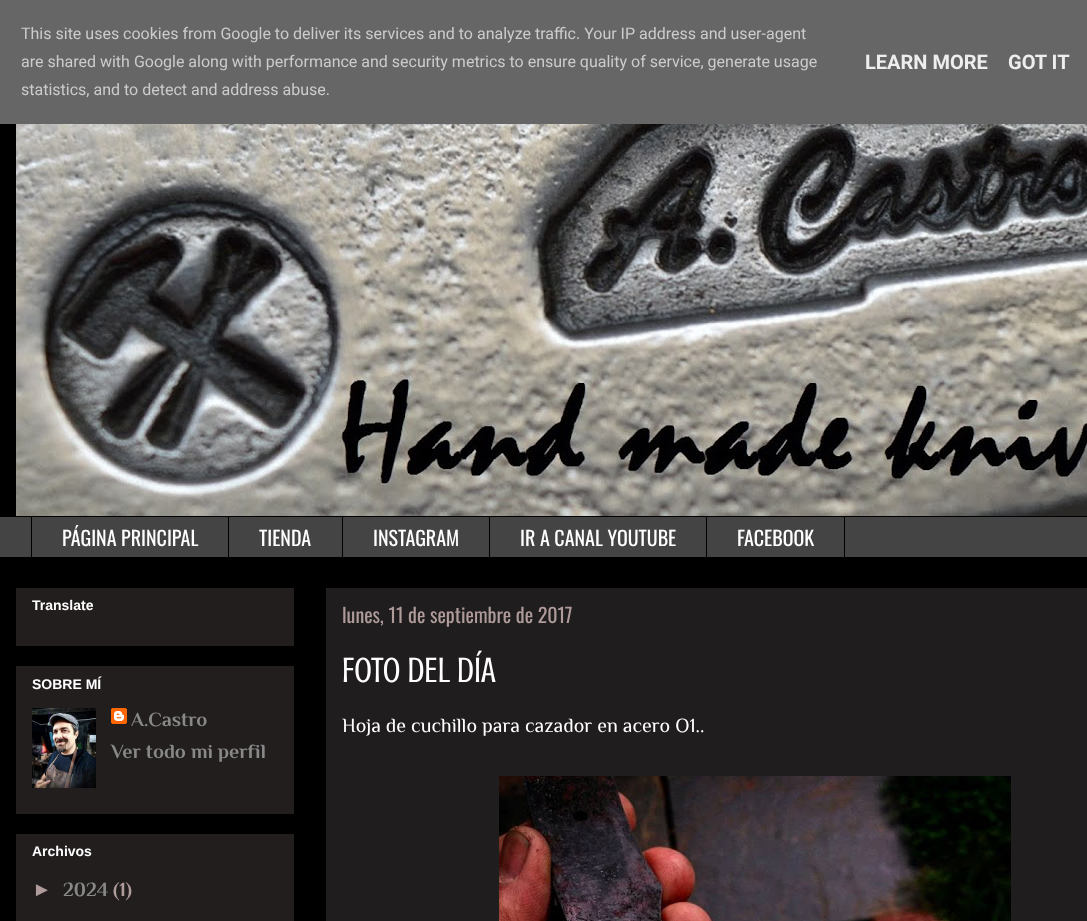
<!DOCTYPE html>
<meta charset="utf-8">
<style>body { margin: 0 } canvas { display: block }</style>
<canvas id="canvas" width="1087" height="921"></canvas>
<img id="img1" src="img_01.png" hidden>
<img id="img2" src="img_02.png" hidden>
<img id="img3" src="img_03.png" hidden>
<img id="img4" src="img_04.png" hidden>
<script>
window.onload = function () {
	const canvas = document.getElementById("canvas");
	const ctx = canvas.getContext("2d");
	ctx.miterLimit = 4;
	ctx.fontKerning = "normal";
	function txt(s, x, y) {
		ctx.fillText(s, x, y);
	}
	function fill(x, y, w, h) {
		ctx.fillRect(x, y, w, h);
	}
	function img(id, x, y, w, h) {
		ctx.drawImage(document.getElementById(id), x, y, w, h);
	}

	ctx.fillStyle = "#000000";
	fill(0, 0, 1087, 921);
	ctx.fillStyle = "#666666";
	fill(0, 0, 1087, 124);
	img("img1", 16, 124, 1071, 392);
	ctx.fillStyle = "#444444";
	fill(0, 517, 1087, 40);
	ctx.fillStyle = "#000000";
	fill(31, 516, 1, 42);
	fill(228, 516, 1, 42);
	fill(342, 516, 1, 42);
	fill(489, 516, 1, 42);
	ctx.strokeStyle = "#000000";
	ctx.strokeRect(706.5, 516.5, 138, 41);
	ctx.fillStyle = "#221E1E";
	fill(16, 588, 278, 58);
	fill(16, 666, 278, 148);
	img("img2", 32, 708, 64, 80);
	img("img3", 111, 708, 16, 16);
	fill(16, 834, 278, 87);
	ctx.fillStyle = "#1F1D1D";
	fill(326, 588, 761, 333);
	img("img4", 499, 776, 512, 145);
	ctx.font = "16px Roboto";
	ctx.fillStyle = "#CCCCCC";
	txt("This site uses cookies from Google to deliver its services and to analyze traffic. Your IP address and user-agent", 21, 39);
	txt("are shared with Google along with performance and security metrics to ensure quality of service, generate usage", 21, 67);
	txt("statistics, and to detect and address abuse.", 21, 95);
	ctx.font = "bold 20px Roboto";
	ctx.fillStyle = "#EEEEEE";
	txt("LEARN MORE", 865, 69);
	txt("GOT IT", 1008, 69);
	ctx.font = "20px Oswald";
	ctx.fillStyle = "#FFFFFF";
	txt("PÁGINA PRINCIPAL", 62, 546);
	txt("TIENDA", 259, 546);
	txt("INSTAGRAM", 373, 546);
	txt("IR A CANAL YOUTUBE", 520, 546);
	txt("FACEBOOK", 737, 546);
	ctx.font = "bold 14px Liberation Sans";
	txt("Translate", 32, 610);
	txt("SOBRE MÍ", 32, 689);
	ctx.font = "bold 20px Philosopher";
	ctx.fillStyle = "#888888";
	txt("A.Castro", 131, 726);
	txt("Ver todo mi perfil", 111, 758);
	ctx.font = "bold 14px Liberation Sans";
	ctx.fillStyle = "#FFFFFF";
	txt("Archivos", 32, 856);
	ctx.font = "bold 20px Liberation Sans";
	ctx.fillStyle = "#B09B9B";
	txt("►", 32, 896);
	ctx.font = "bold 20px Philosopher";
	ctx.fillStyle = "#888888";
	txt("2024", 63, 896);
	ctx.fillStyle = "#B09B9B";
	txt("(1)", 113, 896);
	ctx.font = "20px Oswald";
	txt("lunes, 11 de septiembre de 2017", 342, 623);
	ctx.font = "36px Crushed";
	ctx.fillStyle = "#FFFFFF";
	txt("FOTO DEL DÍA", 342, 682);
	ctx.font = "20px Philosopher";
	txt("Hoja de cuchillo para cazador en acero O1..", 342, 732);
};
</script>
